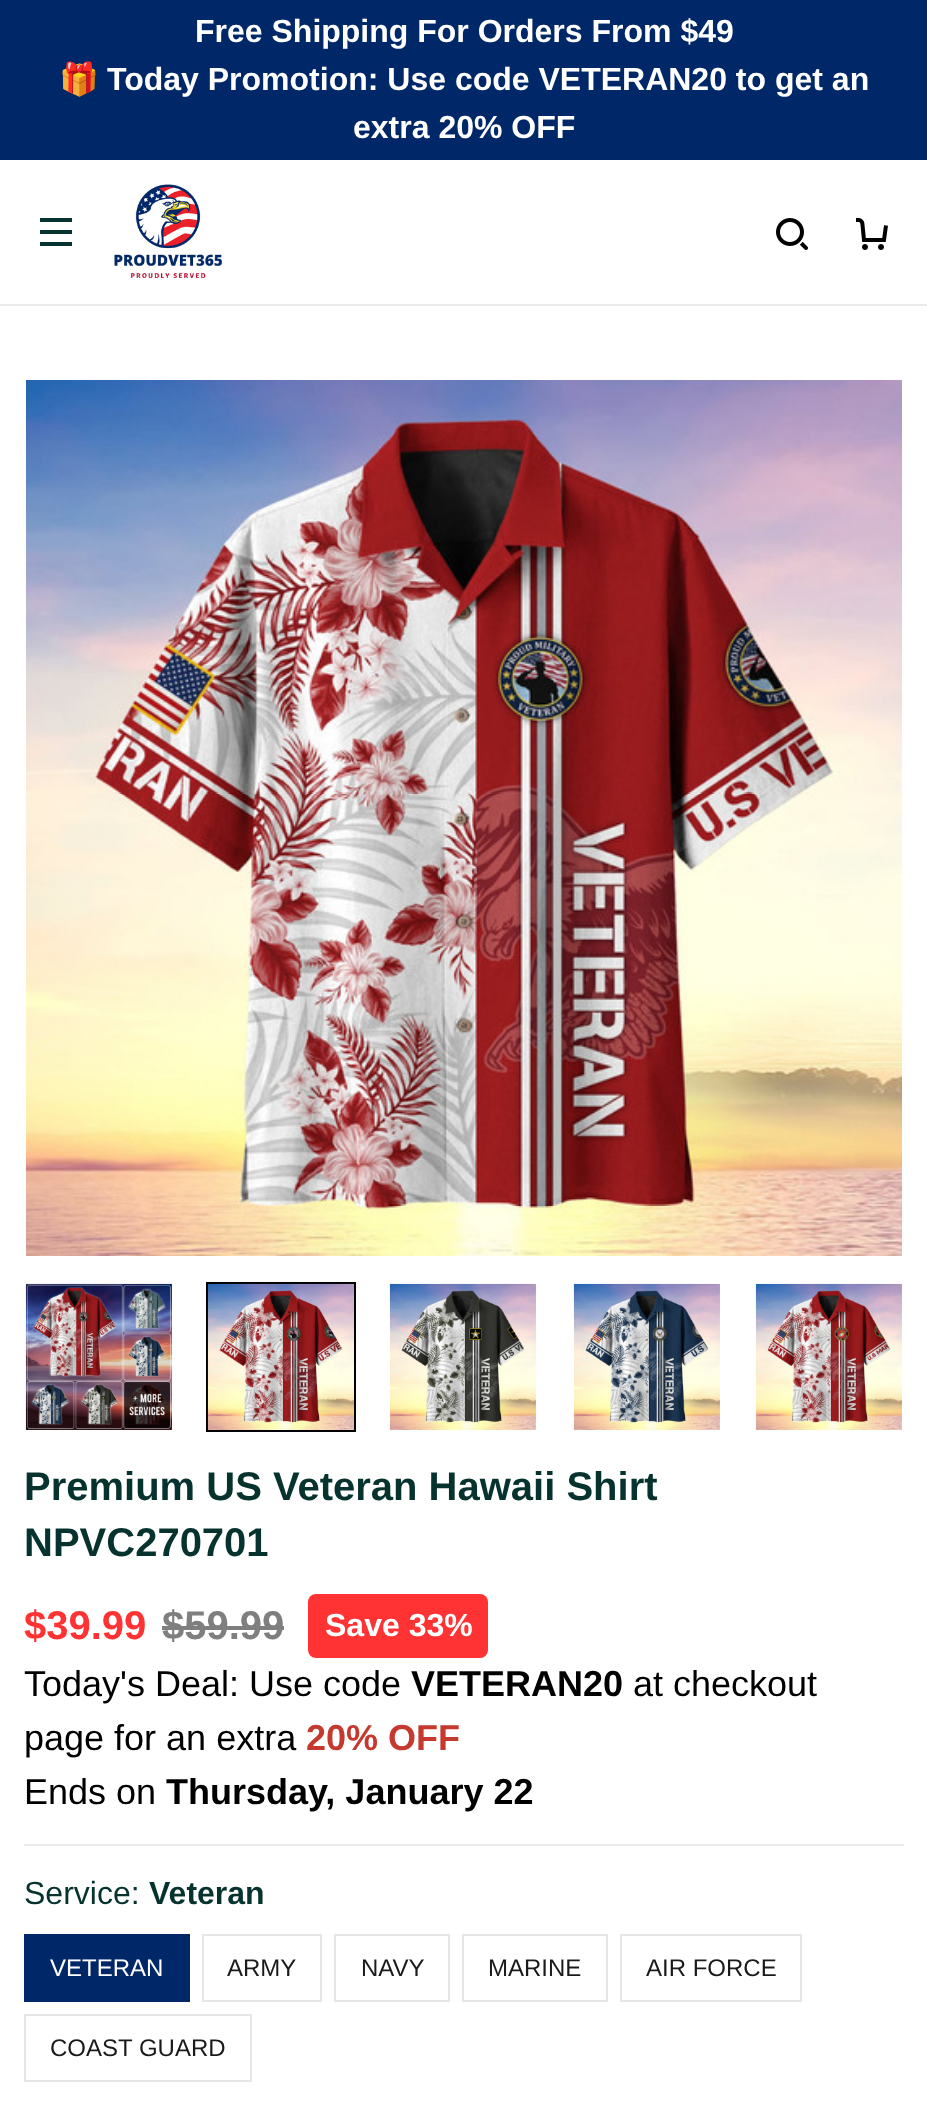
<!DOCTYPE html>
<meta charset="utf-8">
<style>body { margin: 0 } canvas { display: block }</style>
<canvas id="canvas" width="927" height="2123"></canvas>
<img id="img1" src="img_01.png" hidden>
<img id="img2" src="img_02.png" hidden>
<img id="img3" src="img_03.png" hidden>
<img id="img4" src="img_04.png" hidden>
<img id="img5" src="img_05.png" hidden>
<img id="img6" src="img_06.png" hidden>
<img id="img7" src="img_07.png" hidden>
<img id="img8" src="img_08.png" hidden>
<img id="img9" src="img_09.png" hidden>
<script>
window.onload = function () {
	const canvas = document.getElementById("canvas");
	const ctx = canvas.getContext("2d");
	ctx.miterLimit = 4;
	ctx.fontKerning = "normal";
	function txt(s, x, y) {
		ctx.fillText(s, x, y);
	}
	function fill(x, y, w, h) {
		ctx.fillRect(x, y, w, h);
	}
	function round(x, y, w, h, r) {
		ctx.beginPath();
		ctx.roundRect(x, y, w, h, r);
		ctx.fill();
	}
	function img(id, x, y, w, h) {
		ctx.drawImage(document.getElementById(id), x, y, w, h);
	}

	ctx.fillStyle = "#FFFFFF";
	fill(0, 0, 927, 2123);
	ctx.fillStyle = "#002868";
	fill(0, 0, 927, 160);
	ctx.fillStyle = "#EBEBEB";
	fill(0, 304, 927, 2);
	ctx.fillStyle = "#06332E";
	fill(40, 218, 32, 4);
	fill(40, 230, 32, 4);
	fill(40, 242, 32, 4);
	img("img1", 114, 184, 108, 94);
	img("img2", 776, 218, 32, 32);
	img("img3", 856, 218, 32, 32);
	img("img4", 26, 380, 876, 876);
	img("img5", 25, 1283, 147, 147);
	ctx.strokeStyle = "#000000";
	ctx.lineWidth = 2;
	ctx.strokeRect(207, 1283, 148, 148);
	img("img6", 207, 1283, 147, 147);
	img("img7", 389, 1283, 147, 147);
	img("img8", 573, 1283, 147, 147);
	img("img9", 755, 1283, 147, 147);
	ctx.fillStyle = "#7F7F7F";
	fill(162, 1626, 122, 4);
	ctx.fillStyle = "#FF3333";
	round(308, 1594, 180, 64, 8);
	ctx.fillStyle = "#EBEBEB";
	fill(24, 1844, 880, 2);
	ctx.fillStyle = "#002868";
	fill(24, 1934, 166, 68);
	ctx.strokeStyle = "#E6E6E6";
	ctx.strokeRect(203, 1935, 118, 66);
	ctx.strokeRect(335, 1935, 114, 66);
	ctx.strokeRect(463, 1935, 144, 66);
	ctx.strokeRect(621, 1935, 180, 66);
	ctx.strokeRect(25, 2015, 226, 66);
	ctx.font = "bold 32px Liberation Sans";
	ctx.fillStyle = "#FFFFFF";
	txt("Free Shipping For Orders From $49", 195, 42);
	ctx.font = "bold 32px Noto Color Emoji";
	txt("🎁", 59, 90);
	ctx.font = "bold 32px Liberation Sans";
	txt("Today Promotion: Use code VETERAN20 to get an", 107, 90);
	txt("extra 20% OFF", 353, 138);
	ctx.font = "bold 40px Liberation Sans";
	ctx.fillStyle = "#06332E";
	txt("Premium US Veteran Hawaii Shirt", 24, 1500);
	txt("NPVC270701", 24, 1556);
	ctx.fillStyle = "#FF3333";
	txt("$39.99", 24, 1639);
	ctx.fillStyle = "#7F7F7F";
	txt("$59.99", 162, 1639);
	ctx.font = "bold 32px Liberation Sans";
	ctx.fillStyle = "#FFFFFF";
	txt("Save 33%", 325, 1636);
	ctx.font = "36px Liberation Sans";
	ctx.fillStyle = "#000000";
	txt("Today's Deal: Use code", 24, 1696);
	ctx.font = "bold 36px Liberation Sans";
	txt("VETERAN20", 411, 1696);
	ctx.font = "36px Liberation Sans";
	txt("at checkout", 633, 1696);
	txt("page for an extra", 24, 1750);
	ctx.font = "bold 36px Liberation Sans";
	ctx.fillStyle = "#C5392E";
	txt("20% OFF", 306, 1750);
	ctx.font = "36px Liberation Sans";
	ctx.fillStyle = "#000000";
	txt("Ends on", 24, 1804);
	ctx.font = "bold 36px Liberation Sans";
	txt("Thursday, January 22", 166, 1804);
	ctx.font = "32px Liberation Sans";
	ctx.fillStyle = "#06332E";
	txt("Service:", 24, 1904);
	ctx.font = "bold 32px Liberation Sans";
	txt("Veteran", 149, 1904);
	ctx.font = "24px Liberation Sans";
	ctx.fillStyle = "#FFFFFF";
	txt("VETERAN", 50, 1976);
	ctx.fillStyle = "#1A1A1A";
	txt("ARMY", 227, 1976);
	txt("NAVY", 361, 1976);
	txt("MARINE", 488, 1976);
	txt("AIR FORCE", 646, 1976);
	txt("COAST GUARD", 50, 2056);
};
</script>
